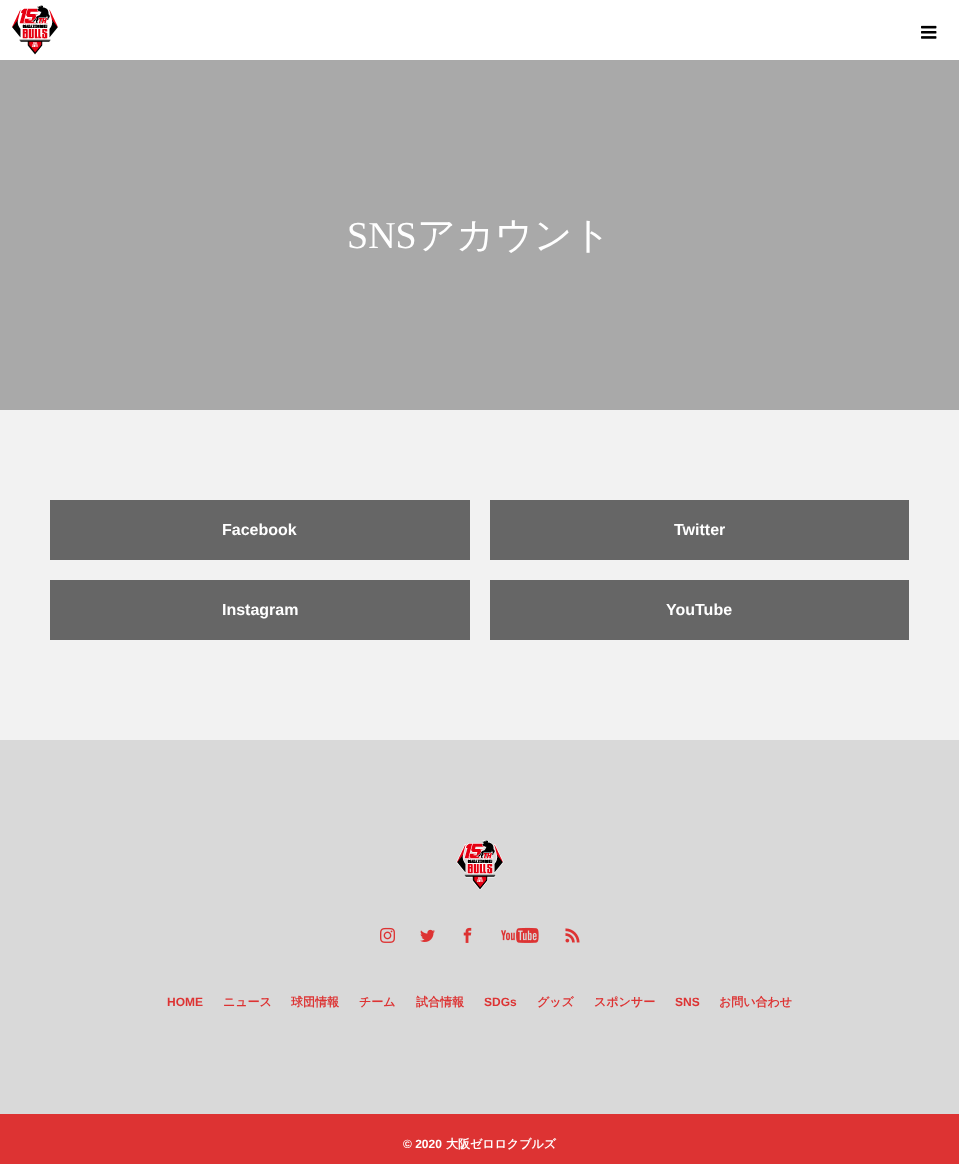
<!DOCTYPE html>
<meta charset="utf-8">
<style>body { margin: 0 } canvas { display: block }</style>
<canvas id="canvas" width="959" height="1164"></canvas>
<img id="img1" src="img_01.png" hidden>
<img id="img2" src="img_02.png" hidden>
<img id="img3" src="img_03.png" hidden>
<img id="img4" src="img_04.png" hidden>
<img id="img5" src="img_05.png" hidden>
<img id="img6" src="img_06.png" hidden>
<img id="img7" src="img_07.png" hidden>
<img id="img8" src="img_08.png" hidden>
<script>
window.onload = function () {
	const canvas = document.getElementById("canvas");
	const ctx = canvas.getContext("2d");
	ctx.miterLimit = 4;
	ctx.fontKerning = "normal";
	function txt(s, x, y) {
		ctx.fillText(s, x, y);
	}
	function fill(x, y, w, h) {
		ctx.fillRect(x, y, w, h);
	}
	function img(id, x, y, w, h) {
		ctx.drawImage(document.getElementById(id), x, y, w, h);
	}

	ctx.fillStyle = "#F2F2F2";
	fill(0, 0, 959, 1164);
	ctx.fillStyle = "#FFFFFF";
	fill(0, 0, 959, 60);
	img("img1", 12, 5, 46, 50);
	img("img2", 921, 25, 16, 14);
	ctx.fillStyle = "#A9A9A9";
	fill(0, 60, 959, 350);
	ctx.fillStyle = "#666666";
	fill(50, 500, 420, 60);
	fill(490, 500, 419, 60);
	fill(50, 580, 420, 60);
	fill(490, 580, 419, 60);
	ctx.fillStyle = "#D9D9D9";
	fill(0, 740, 959, 374);
	img("img3", 456, 840, 48, 50);
	img("img4", 380, 927, 15, 16);
	img("img5", 420, 929, 15, 13);
	img("img6", 463, 927, 9, 16);
	img("img7", 501, 927, 38, 16);
	img("img8", 565, 928, 15, 15);
	ctx.fillStyle = "#DD3333";
	fill(0, 1114, 959, 50);
	ctx.font = "38px Liberation Serif";
	ctx.fillStyle = "#FFFFFF";
	txt("SNS", 347, 248);
	ctx.font = "500 38px WenQuanYi Zen Hei";
	txt("アカウント", 417, 248);
	ctx.font = "bold 16px Liberation Sans";
	txt("Facebook", 222, 535);
	txt("Twitter", 674, 535);
	txt("Instagram", 222, 615);
	txt("YouTube", 666, 615);
	ctx.font = "bold 12px Liberation Sans";
	ctx.fillStyle = "#DD3333";
	txt("HOME", 167, 1006);
	ctx.font = "bold 12px WenQuanYi Zen Hei";
	txt("ニュース", 223, 1006);
	txt("球団情報", 291, 1006);
	txt("チーム", 359, 1006);
	txt("試合情報", 416, 1006);
	ctx.font = "bold 12px Liberation Sans";
	txt("SDGs", 484, 1006);
	ctx.font = "bold 12px WenQuanYi Zen Hei";
	txt("グッズ", 537, 1006);
	txt("スポンサー", 594, 1006);
	ctx.font = "bold 12px Liberation Sans";
	txt("SNS", 675, 1006);
	ctx.font = "bold 12px WenQuanYi Zen Hei";
	txt("お問い合わせ", 719, 1006);
	ctx.font = "bold 12px Liberation Sans";
	ctx.fillStyle = "#FFFFFF";
	txt("© 2020", 403, 1148);
	ctx.font = "bold 12px WenQuanYi Zen Hei";
	txt("大阪ゼロロクブルズ", 446, 1148);
};
</script>
